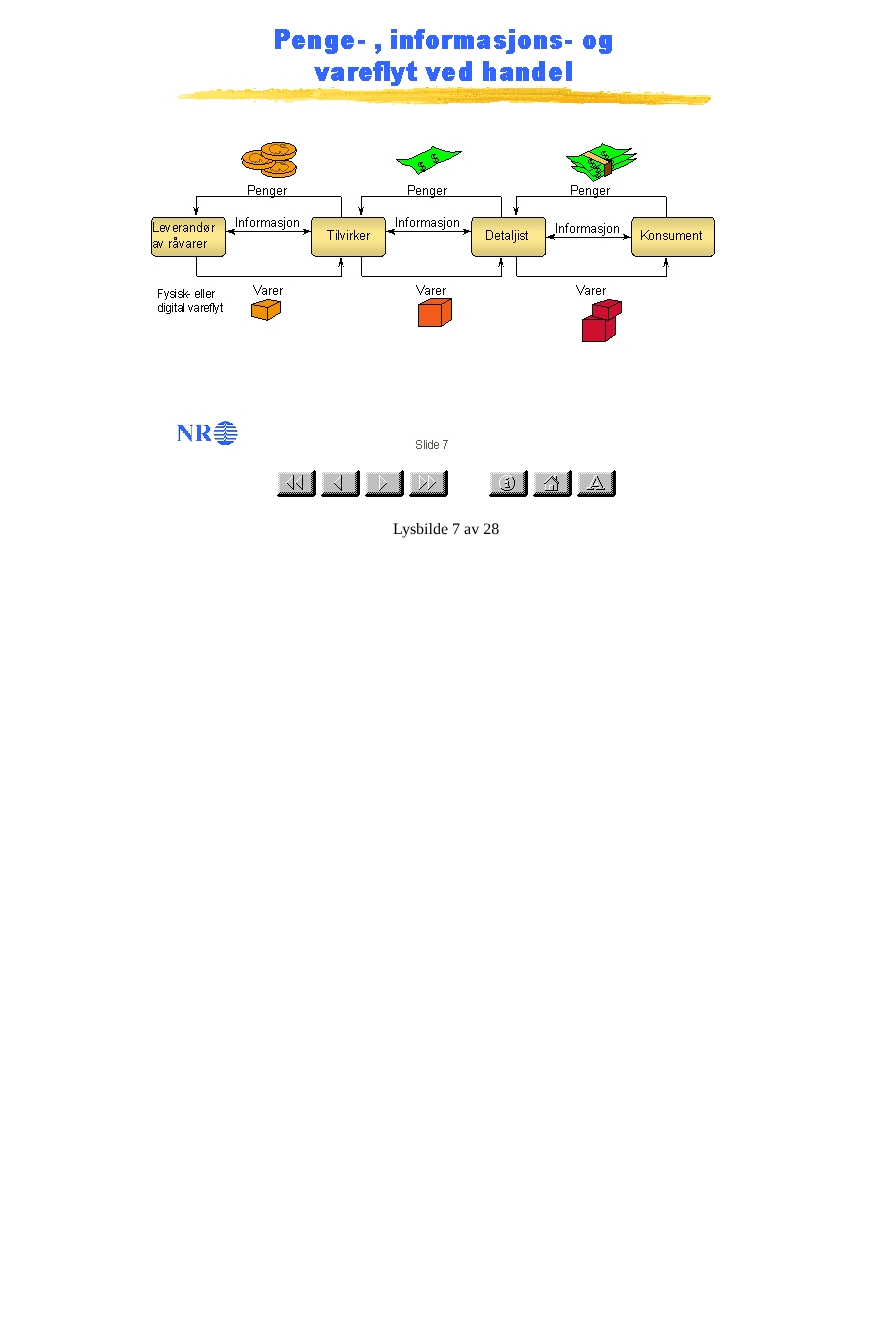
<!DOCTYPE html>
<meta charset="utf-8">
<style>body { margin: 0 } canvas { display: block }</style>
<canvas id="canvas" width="892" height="1340"></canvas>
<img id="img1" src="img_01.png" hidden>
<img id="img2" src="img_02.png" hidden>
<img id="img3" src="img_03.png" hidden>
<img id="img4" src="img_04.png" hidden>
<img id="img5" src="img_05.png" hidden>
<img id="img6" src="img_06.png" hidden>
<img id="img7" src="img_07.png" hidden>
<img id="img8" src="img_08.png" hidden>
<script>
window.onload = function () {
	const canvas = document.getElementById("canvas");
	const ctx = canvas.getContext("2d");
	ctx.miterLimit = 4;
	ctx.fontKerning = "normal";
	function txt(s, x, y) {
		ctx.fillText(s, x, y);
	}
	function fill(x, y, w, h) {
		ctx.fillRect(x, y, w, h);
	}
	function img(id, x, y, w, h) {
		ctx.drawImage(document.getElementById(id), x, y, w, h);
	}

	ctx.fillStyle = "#FFFFFF";
	fill(0, 0, 892, 1340);
	img("img1", 151, 28, 564, 421);
	img("img2", 277, 470, 39, 27);
	img("img3", 321, 470, 39, 27);
	img("img4", 365, 470, 39, 27);
	img("img5", 409, 470, 39, 27);
	img("img6", 489, 470, 39, 27);
	img("img7", 533, 470, 39, 27);
	img("img8", 577, 470, 39, 27);
	ctx.font = "16px Liberation Serif";
	ctx.fillStyle = "#000000";
	txt("Lysbilde 7 av 28", 393, 534);
};
</script>
